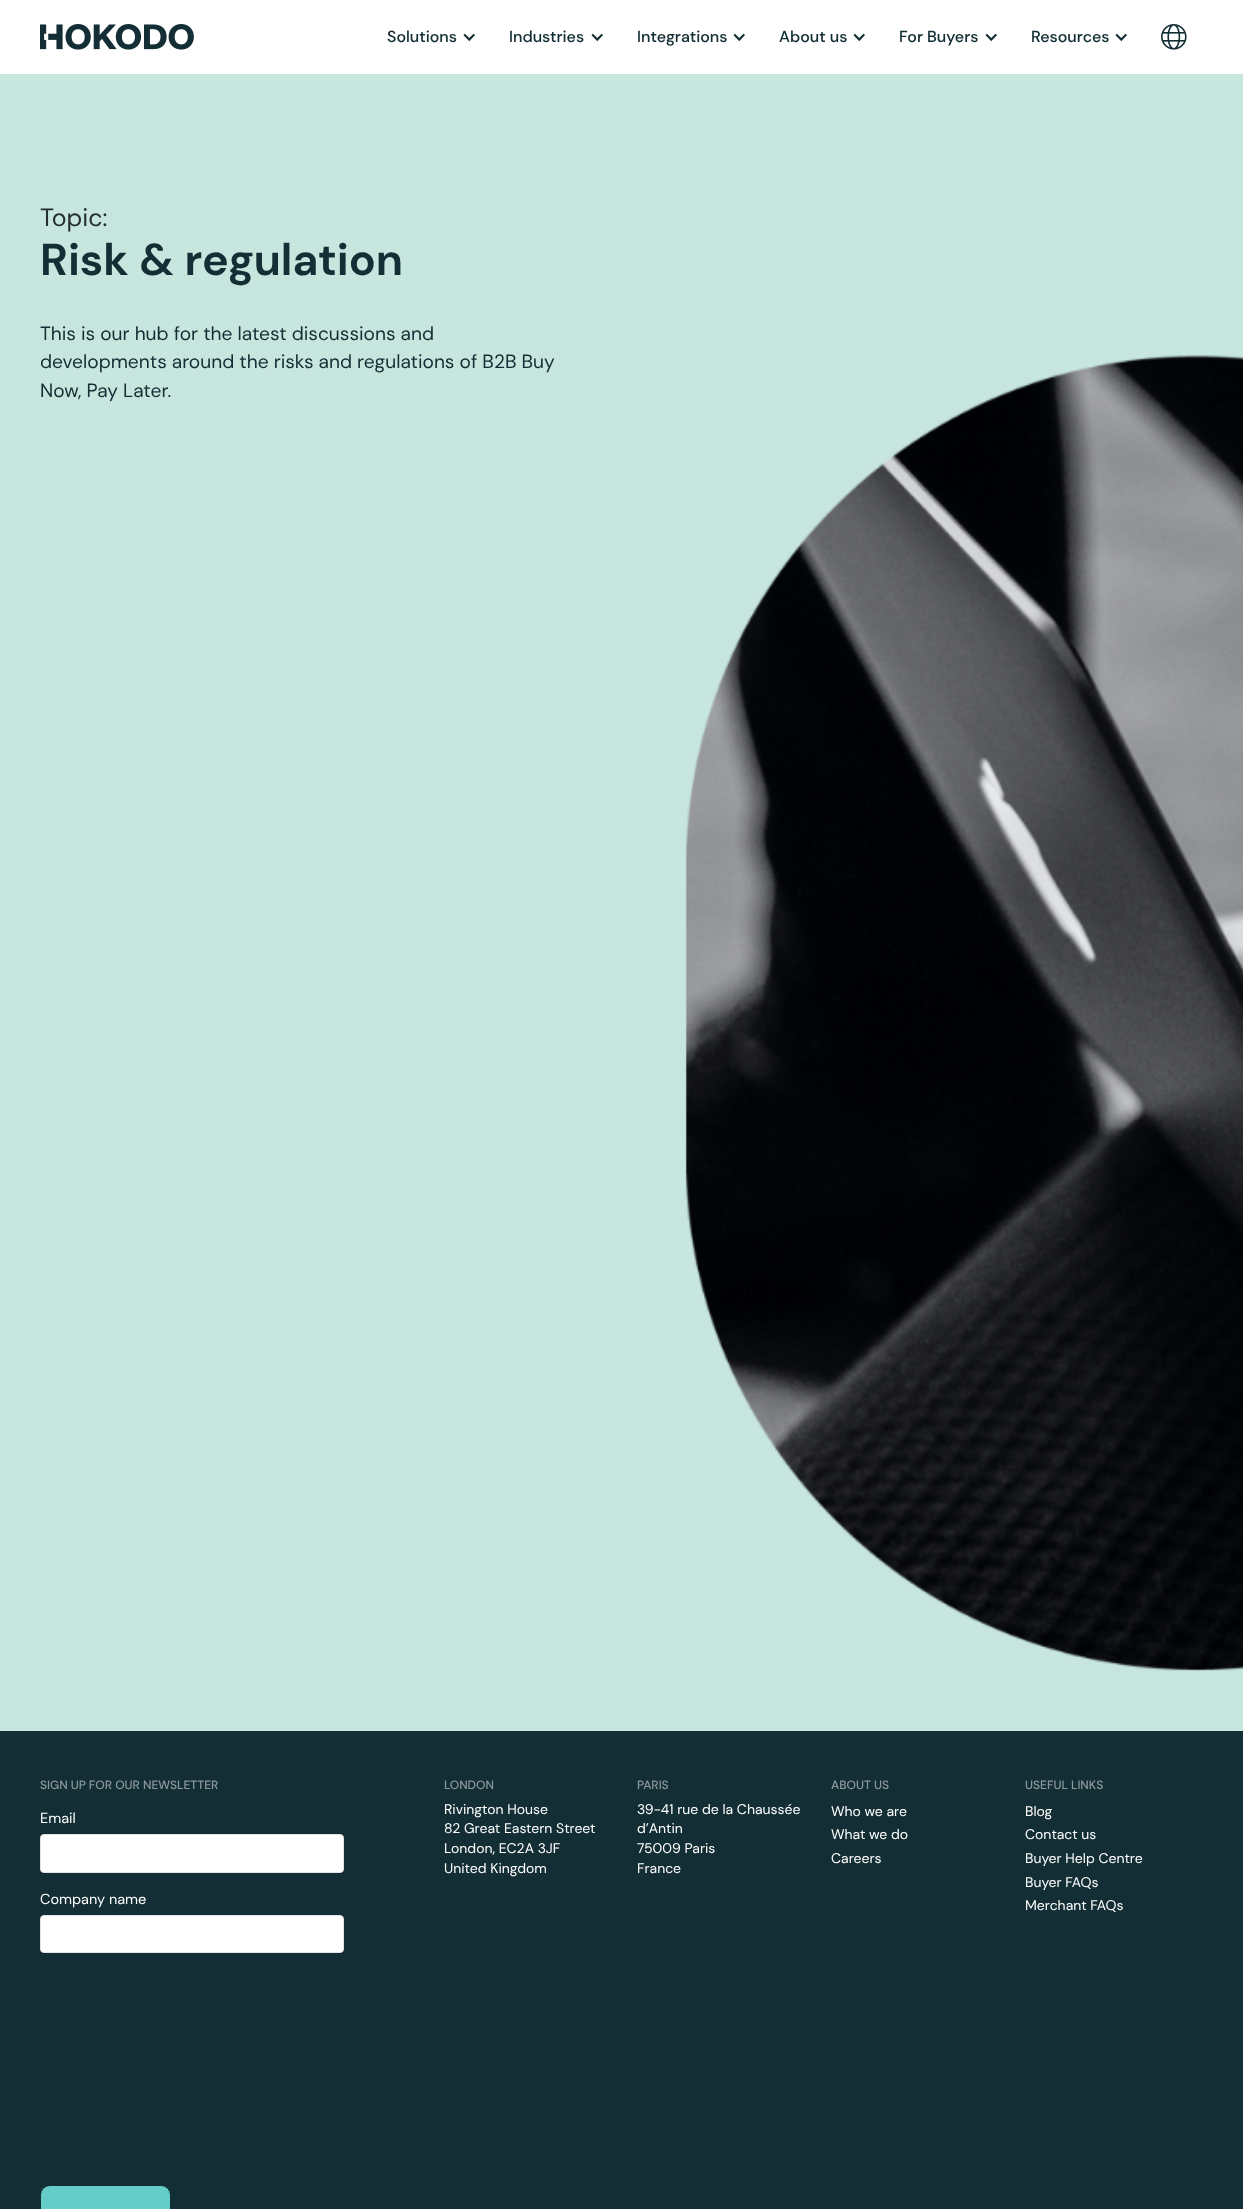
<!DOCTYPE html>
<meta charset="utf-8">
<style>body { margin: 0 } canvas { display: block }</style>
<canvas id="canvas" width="1243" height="2209"></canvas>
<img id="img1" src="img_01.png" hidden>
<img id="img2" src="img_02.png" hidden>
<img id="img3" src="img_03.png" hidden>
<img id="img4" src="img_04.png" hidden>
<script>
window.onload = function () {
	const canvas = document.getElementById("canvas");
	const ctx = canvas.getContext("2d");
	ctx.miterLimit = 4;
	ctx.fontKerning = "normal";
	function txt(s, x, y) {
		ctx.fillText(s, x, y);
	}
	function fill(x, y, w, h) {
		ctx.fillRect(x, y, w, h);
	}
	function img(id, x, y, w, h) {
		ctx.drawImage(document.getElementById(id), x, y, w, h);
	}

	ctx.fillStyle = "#FFFFFF";
	fill(0, 0, 1243, 2209);
	img("img1", 40, 24, 154, 26);
	img("img2", 463, 33, 12, 9);
	img("img2", 591, 33, 12, 9);
	img("img2", 733, 33, 12, 9);
	img("img2", 853, 33, 12, 9);
	img("img2", 985, 33, 12, 9);
	img("img2", 1115, 33, 12, 9);
	img("img3", 1161, 24, 26, 26);
	img("img4", 0, 74, 1243, 1657);
	ctx.fillStyle = "#132E34";
	fill(0, 1731, 1243, 478);
	ctx.fillStyle = "#FFFFFF";
	ctx.beginPath();
	ctx.roundRect(40.5, 1834.5, 303, 38, 3.5);
	ctx.fill();
	ctx.strokeStyle = "#E3E3E3";
	ctx.stroke();
	ctx.beginPath();
	ctx.roundRect(40.5, 1915.5, 303, 37, 3.5);
	ctx.fill();
	ctx.stroke();
	ctx.fillStyle = "#64CDC8";
	ctx.beginPath();
	ctx.roundRect(40.5, 2185.5, 130, 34, 9.5);
	ctx.fill();
	ctx.strokeStyle = "#132E34";
	ctx.stroke();
	ctx.font = "500 16px DM Sans";
	ctx.fillStyle = "#132E34";
	txt("Solutions", 387, 42);
	txt("Industries", 509, 42);
	txt("Integrations", 637, 42);
	txt("About us", 779, 42);
	txt("For Buyers", 899, 42);
	txt("Resources", 1031, 42);
	ctx.font = "25px DM Sans";
	ctx.fillStyle = "#252E33";
	txt("Topic:", 40, 226);
	ctx.font = "bold 44.75px DM Sans";
	ctx.fillStyle = "#132E34";
	txt("Risk & regulation", 40, 275);
	ctx.font = "19.2px DM Sans";
	txt("This is our hub for the latest discussions and", 40, 340);
	txt("developments around the risks and regulations of B2B Buy", 40, 368);
	txt("Now, Pay Later.", 40, 397);
	ctx.font = "500 12px DM Sans";
	ctx.fillStyle = "#89979A";
	txt("SIGN UP FOR OUR NEWSLETTER", 40, 1789);
	ctx.font = "14.5px DM Sans";
	ctx.fillStyle = "#FFFFFF";
	txt("Email", 40, 1823);
	txt("Company name", 40, 1904);
	ctx.font = "500 12px DM Sans";
	ctx.fillStyle = "#89979A";
	txt("LONDON", 444, 1789);
	ctx.font = "14px DM Sans";
	ctx.fillStyle = "#FFFFFF";
	txt("Rivington House", 444, 1814);
	txt("82 Great Eastern Street", 444, 1833);
	txt("London, EC2A 3JF", 444, 1853);
	txt("United Kingdom", 444, 1873);
	ctx.font = "500 12px DM Sans";
	ctx.fillStyle = "#89979A";
	txt("PARIS", 637, 1789);
	ctx.font = "14px DM Sans";
	ctx.fillStyle = "#FFFFFF";
	txt("39-41 rue de la Chaussée", 637, 1814);
	txt("d’Antin", 637, 1833);
	txt("75009 Paris", 637, 1853);
	txt("France", 637, 1873);
	ctx.font = "500 12px DM Sans";
	ctx.fillStyle = "#89979A";
	txt("ABOUT US", 831, 1789);
	ctx.font = "14px DM Sans";
	ctx.fillStyle = "#FFFFFF";
	txt("Who we are", 831, 1816);
	txt("What we do", 831, 1839);
	txt("Careers", 831, 1863);
	ctx.font = "500 12px DM Sans";
	ctx.fillStyle = "#89979A";
	txt("USEFUL LINKS", 1025, 1789);
	ctx.font = "14px DM Sans";
	ctx.fillStyle = "#FFFFFF";
	txt("Blog", 1025, 1816);
	txt("Contact us", 1025, 1839);
	txt("Buyer Help Centre", 1025, 1863);
	txt("Buyer FAQs", 1025, 1887);
	txt("Merchant FAQs", 1025, 1910);
};
</script>
